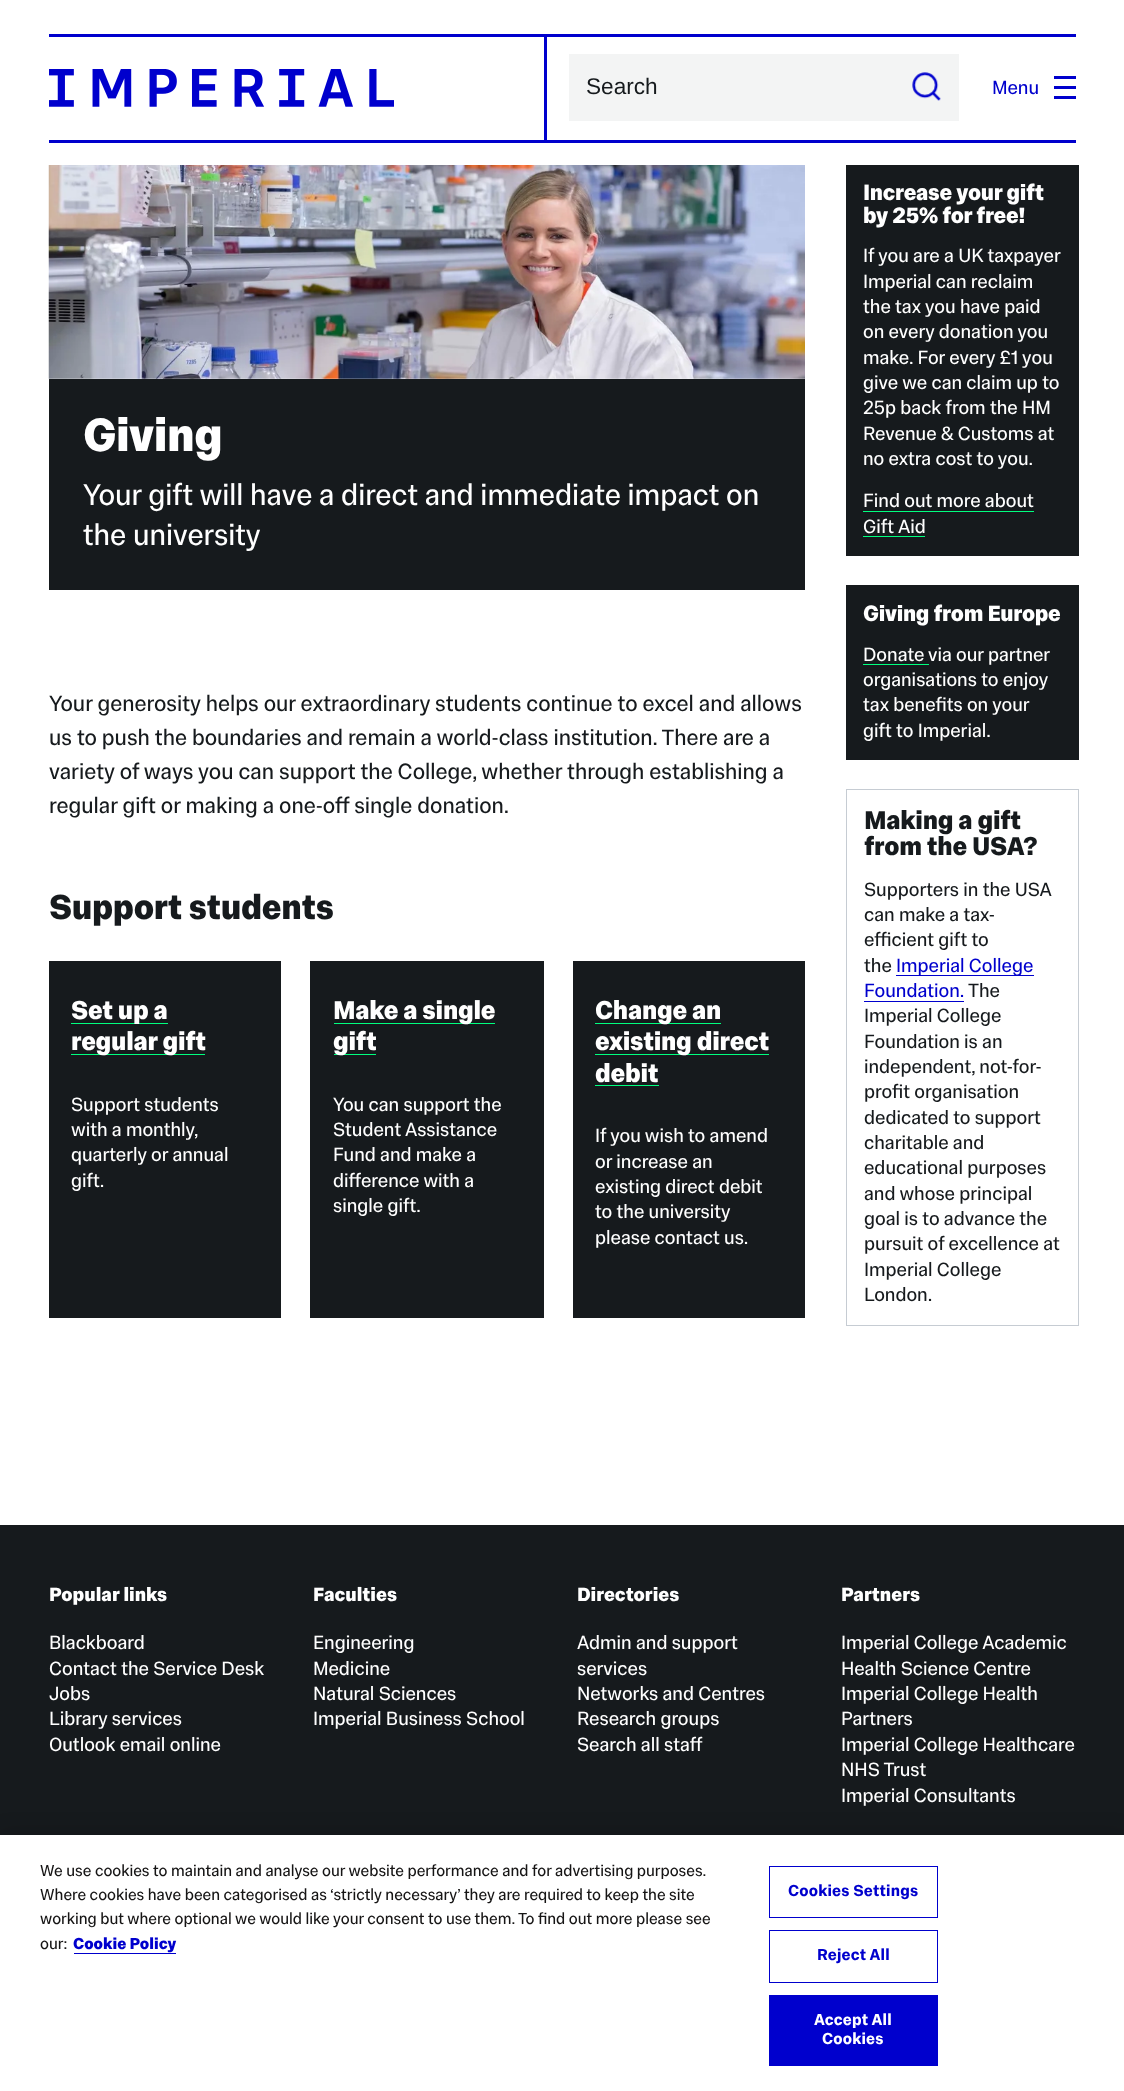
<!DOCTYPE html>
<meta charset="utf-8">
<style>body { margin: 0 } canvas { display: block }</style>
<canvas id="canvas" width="1124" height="2091"></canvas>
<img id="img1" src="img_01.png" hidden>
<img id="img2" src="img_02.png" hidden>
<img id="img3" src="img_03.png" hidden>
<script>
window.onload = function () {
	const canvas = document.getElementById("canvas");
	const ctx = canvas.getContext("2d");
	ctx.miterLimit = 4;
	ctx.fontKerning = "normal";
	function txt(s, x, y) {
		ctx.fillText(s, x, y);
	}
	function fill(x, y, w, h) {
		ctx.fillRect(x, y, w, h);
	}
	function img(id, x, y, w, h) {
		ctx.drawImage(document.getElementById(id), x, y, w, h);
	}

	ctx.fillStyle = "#FFFFFF";
	fill(0, 0, 1124, 2091);
	ctx.fillStyle = "#0000CD";
	fill(49, 34, 1027, 3);
	img("img1", 49, 69, 345, 38);
	fill(544, 34, 3, 109);
	ctx.fillStyle = "#F3F4F4";
	fill(569, 54, 390, 67);
	img("img2", 912, 72, 29, 29);
	ctx.fillStyle = "#0000CD";
	fill(1054, 76, 22, 3);
	fill(1054, 86, 22, 3);
	fill(1054, 96, 22, 3);
	fill(49, 140, 1027, 3);
	img("img3", 48, 165, 757, 214);
	ctx.fillStyle = "#161A1D";
	fill(49, 379, 756, 211);
	fill(49, 961, 232, 357);
	ctx.fillStyle = "#00FF7F";
	fill(71, 1023, 97, 1);
	fill(71, 1054, 134, 1);
	ctx.fillStyle = "#161A1D";
	fill(310, 961, 234, 357);
	ctx.fillStyle = "#00FF7F";
	fill(334, 1023, 161, 1);
	fill(334, 1054, 42, 1);
	ctx.fillStyle = "#161A1D";
	fill(573, 961, 232, 357);
	ctx.fillStyle = "#00FF7F";
	fill(595, 1023, 126, 1);
	fill(595, 1054, 174, 1);
	fill(595, 1085, 64, 1);
	ctx.fillStyle = "#161A1D";
	fill(846, 165, 233, 391);
	ctx.fillStyle = "#00FF7F";
	fill(863, 511, 171, 1);
	fill(863, 536, 62, 1);
	ctx.fillStyle = "#161A1D";
	fill(846, 585, 233, 175);
	ctx.fillStyle = "#00FF7F";
	fill(863, 664, 66, 1);
	ctx.strokeStyle = "#C6CCD3";
	ctx.strokeRect(846.5, 789.5, 232, 536);
	ctx.fillStyle = "#0000CD";
	fill(896, 975, 138, 1);
	fill(864, 1001, 100, 1);
	ctx.fillStyle = "#161A1D";
	fill(0, 1525, 1124, 310);
	ctx.fillStyle = "rgba(0, 0, 0, 0.2)";
	ctx.filter = "blur(11px)";
	ctx.beginPath();
	ctx.rect(0, 1835, 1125, 256);
	ctx.fill();
	ctx.filter = "none";
	ctx.fillStyle = "#FFFFFF";
	fill(0, 1835, 1124, 256);
	ctx.fillStyle = "#0000CD";
	fill(74, 1953, 102, 1);
	ctx.strokeStyle = "#0000CD";
	ctx.strokeRect(769.5, 1866.5, 168, 51);
	ctx.strokeRect(769.5, 1930.5, 168, 52);
	fill(769, 1995, 169, 71);
	ctx.font = "22.6px Liberation Sans";
	ctx.fillStyle = "#161A1D";
	txt("Search", 586, 94);
	ctx.font = "19.5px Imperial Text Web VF";
	ctx.fillStyle = "#0000CD";
	txt("Menu", 992, 94);
	ctx.letterSpacing = "-0.5px";
	ctx.font = "bold 47.5px Imperial Text Web VF";
	ctx.fillStyle = "#FFFFFF";
	txt("Giving", 83, 451);
	ctx.letterSpacing = "0px";
	ctx.font = "30.4px Imperial Text Web VF";
	txt("Your gift will have a direct and immediate impact on", 83, 505);
	txt("the university", 83, 545);
	ctx.font = "22.6px Imperial Text Web VF";
	ctx.fillStyle = "#161A1D";
	txt("Your generosity helps our extraordinary students continue to excel and allows", 49, 711);
	txt("us to push the boundaries and remain a world-class institution. There are a", 49, 745);
	txt("variety of ways you can support the College, whether through establishing a", 49, 779);
	txt("regular gift or making a one-off single donation.", 49, 813);
	ctx.letterSpacing = "-0.3px";
	ctx.font = "bold 35.25px Imperial Text Web VF";
	txt("Support students", 49, 919);
	ctx.letterSpacing = "-0.25px";
	ctx.font = "bold 26.25px Imperial Text Web VF";
	ctx.fillStyle = "#FFFFFF";
	txt("Set up a", 71, 1019);
	txt("regular gift", 71, 1050);
	ctx.letterSpacing = "0px";
	ctx.font = "19.5px Imperial Text Web VF";
	txt("Support students", 71, 1111);
	txt("with a monthly,", 71, 1136);
	txt("quarterly or annual", 71, 1161);
	txt("gift.", 71, 1187);
	ctx.letterSpacing = "-0.25px";
	ctx.font = "bold 26.25px Imperial Text Web VF";
	txt("Make a single", 333, 1019);
	txt("gift", 333, 1050);
	ctx.letterSpacing = "0px";
	ctx.font = "19.5px Imperial Text Web VF";
	txt("You can support the", 333, 1111);
	txt("Student Assistance", 333, 1136);
	txt("Fund and make a", 333, 1161);
	txt("difference with a", 333, 1187);
	txt("single gift.", 333, 1212);
	ctx.letterSpacing = "-0.25px";
	ctx.font = "bold 26.25px Imperial Text Web VF";
	txt("Change an", 595, 1019);
	txt("existing direct", 595, 1050);
	txt("debit", 595, 1082);
	ctx.letterSpacing = "0px";
	ctx.font = "19.5px Imperial Text Web VF";
	txt("If you wish to amend", 595, 1142);
	txt("or increase an", 595, 1168);
	txt("existing direct debit", 595, 1193);
	txt("to the university", 595, 1218);
	txt("please contact us.", 595, 1244);
	ctx.letterSpacing = "-0.25px";
	ctx.font = "bold 22.6px Imperial Text Web VF";
	txt("Increase your gift", 863, 200);
	txt("by 25% for free!", 863, 223);
	ctx.letterSpacing = "0px";
	ctx.font = "19.5px Imperial Text Web VF";
	txt("If you are a UK taxpayer", 863, 262);
	txt("Imperial can reclaim", 863, 288);
	txt("the tax you have paid", 863, 313);
	txt("on every donation you", 863, 338);
	txt("make. For every £1 you", 863, 364);
	txt("give we can claim up to", 863, 389);
	txt("25p back from the HM", 863, 414);
	txt("Revenue & Customs at", 863, 440);
	txt("no extra cost to you.", 863, 465);
	txt("Find out more about", 863, 507);
	txt("Gift Aid", 863, 533);
	ctx.letterSpacing = "-0.25px";
	ctx.font = "bold 22.6px Imperial Text Web VF";
	txt("Giving from Europe", 863, 621);
	ctx.letterSpacing = "0px";
	ctx.font = "19.5px Imperial Text Web VF";
	txt("Donate", 863, 661);
	txt("via our partner", 928, 661);
	txt("organisations to enjoy", 863, 686);
	txt("tax benefits on your", 863, 711);
	txt("gift to Imperial.", 863, 737);
	ctx.letterSpacing = "-0.25px";
	ctx.font = "bold 26.25px Imperial Text Web VF";
	ctx.fillStyle = "#161A1D";
	txt("Making a gift", 864, 829);
	txt("from the USA?", 864, 855);
	ctx.letterSpacing = "0px";
	ctx.font = "19.5px Imperial Text Web VF";
	txt("Supporters in the USA", 864, 896);
	txt("can make a tax-", 864, 921);
	txt("efficient gift to", 864, 946);
	txt("the", 864, 972);
	ctx.fillStyle = "#0000CD";
	txt("Imperial College", 896, 972);
	txt("Foundation.", 864, 997);
	ctx.fillStyle = "#161A1D";
	txt("The", 968, 997);
	txt("Imperial College", 864, 1022);
	txt("Foundation is an", 864, 1048);
	txt("independent, not-for-", 864, 1073);
	txt("profit organisation", 864, 1098);
	txt("dedicated to support", 864, 1124);
	txt("charitable and", 864, 1149);
	txt("educational purposes", 864, 1174);
	txt("and whose principal", 864, 1200);
	txt("goal is to advance the", 864, 1225);
	txt("pursuit of excellence at", 864, 1250);
	txt("Imperial College", 864, 1276);
	txt("London.", 864, 1301);
	ctx.font = "bold 19.5px Imperial Text Web VF";
	ctx.fillStyle = "#FFFFFF";
	txt("Popular links", 49, 1601);
	ctx.font = "19.5px Imperial Text Web VF";
	txt("Blackboard", 49, 1649);
	txt("Contact the Service Desk", 49, 1675);
	txt("Jobs", 49, 1700);
	txt("Library services", 49, 1725);
	txt("Outlook email online", 49, 1751);
	ctx.font = "bold 19.5px Imperial Text Web VF";
	txt("Faculties", 313, 1601);
	ctx.font = "19.5px Imperial Text Web VF";
	txt("Engineering", 313, 1649);
	txt("Medicine", 313, 1675);
	txt("Natural Sciences", 313, 1700);
	txt("Imperial Business School", 313, 1725);
	ctx.font = "bold 19.5px Imperial Text Web VF";
	txt("Directories", 577, 1601);
	ctx.font = "19.5px Imperial Text Web VF";
	txt("Admin and support", 577, 1649);
	txt("services", 577, 1675);
	txt("Networks and Centres", 577, 1700);
	txt("Research groups", 577, 1725);
	txt("Search all staff", 577, 1751);
	ctx.font = "bold 19.5px Imperial Text Web VF";
	txt("Partners", 841, 1601);
	ctx.font = "19.5px Imperial Text Web VF";
	txt("Imperial College Academic", 841, 1649);
	txt("Health Science Centre", 841, 1675);
	txt("Imperial College Health", 841, 1700);
	txt("Partners", 841, 1725);
	txt("Imperial College Healthcare", 841, 1751);
	txt("NHS Trust", 841, 1776);
	txt("Imperial Consultants", 841, 1802);
	ctx.font = "16.25px Imperial Text Web VF";
	ctx.fillStyle = "#161515";
	txt("We use cookies to maintain and analyse our website performance and for advertising purposes.", 40, 1876);
	txt("Where cookies have been categorised as ‘strictly necessary’ they are required to keep the site", 40, 1900);
	txt("working but where optional we would like your consent to use them. To find out more please see", 40, 1924);
	txt("our:", 40, 1949);
	ctx.font = "bold 16.25px Imperial Text Web VF";
	ctx.fillStyle = "#0000CD";
	txt("Cookie Policy", 73, 1949);
	ctx.letterSpacing = "0.2px";
	ctx.font = "600 16.25px Imperial Text Web VF";
	txt("Cookies Settings", 788, 1896);
	txt("Reject All", 817, 1960);
	ctx.fillStyle = "#FFFFFF";
	txt("Accept All", 814, 2025);
	txt("Cookies", 822, 2044);
};
</script>
